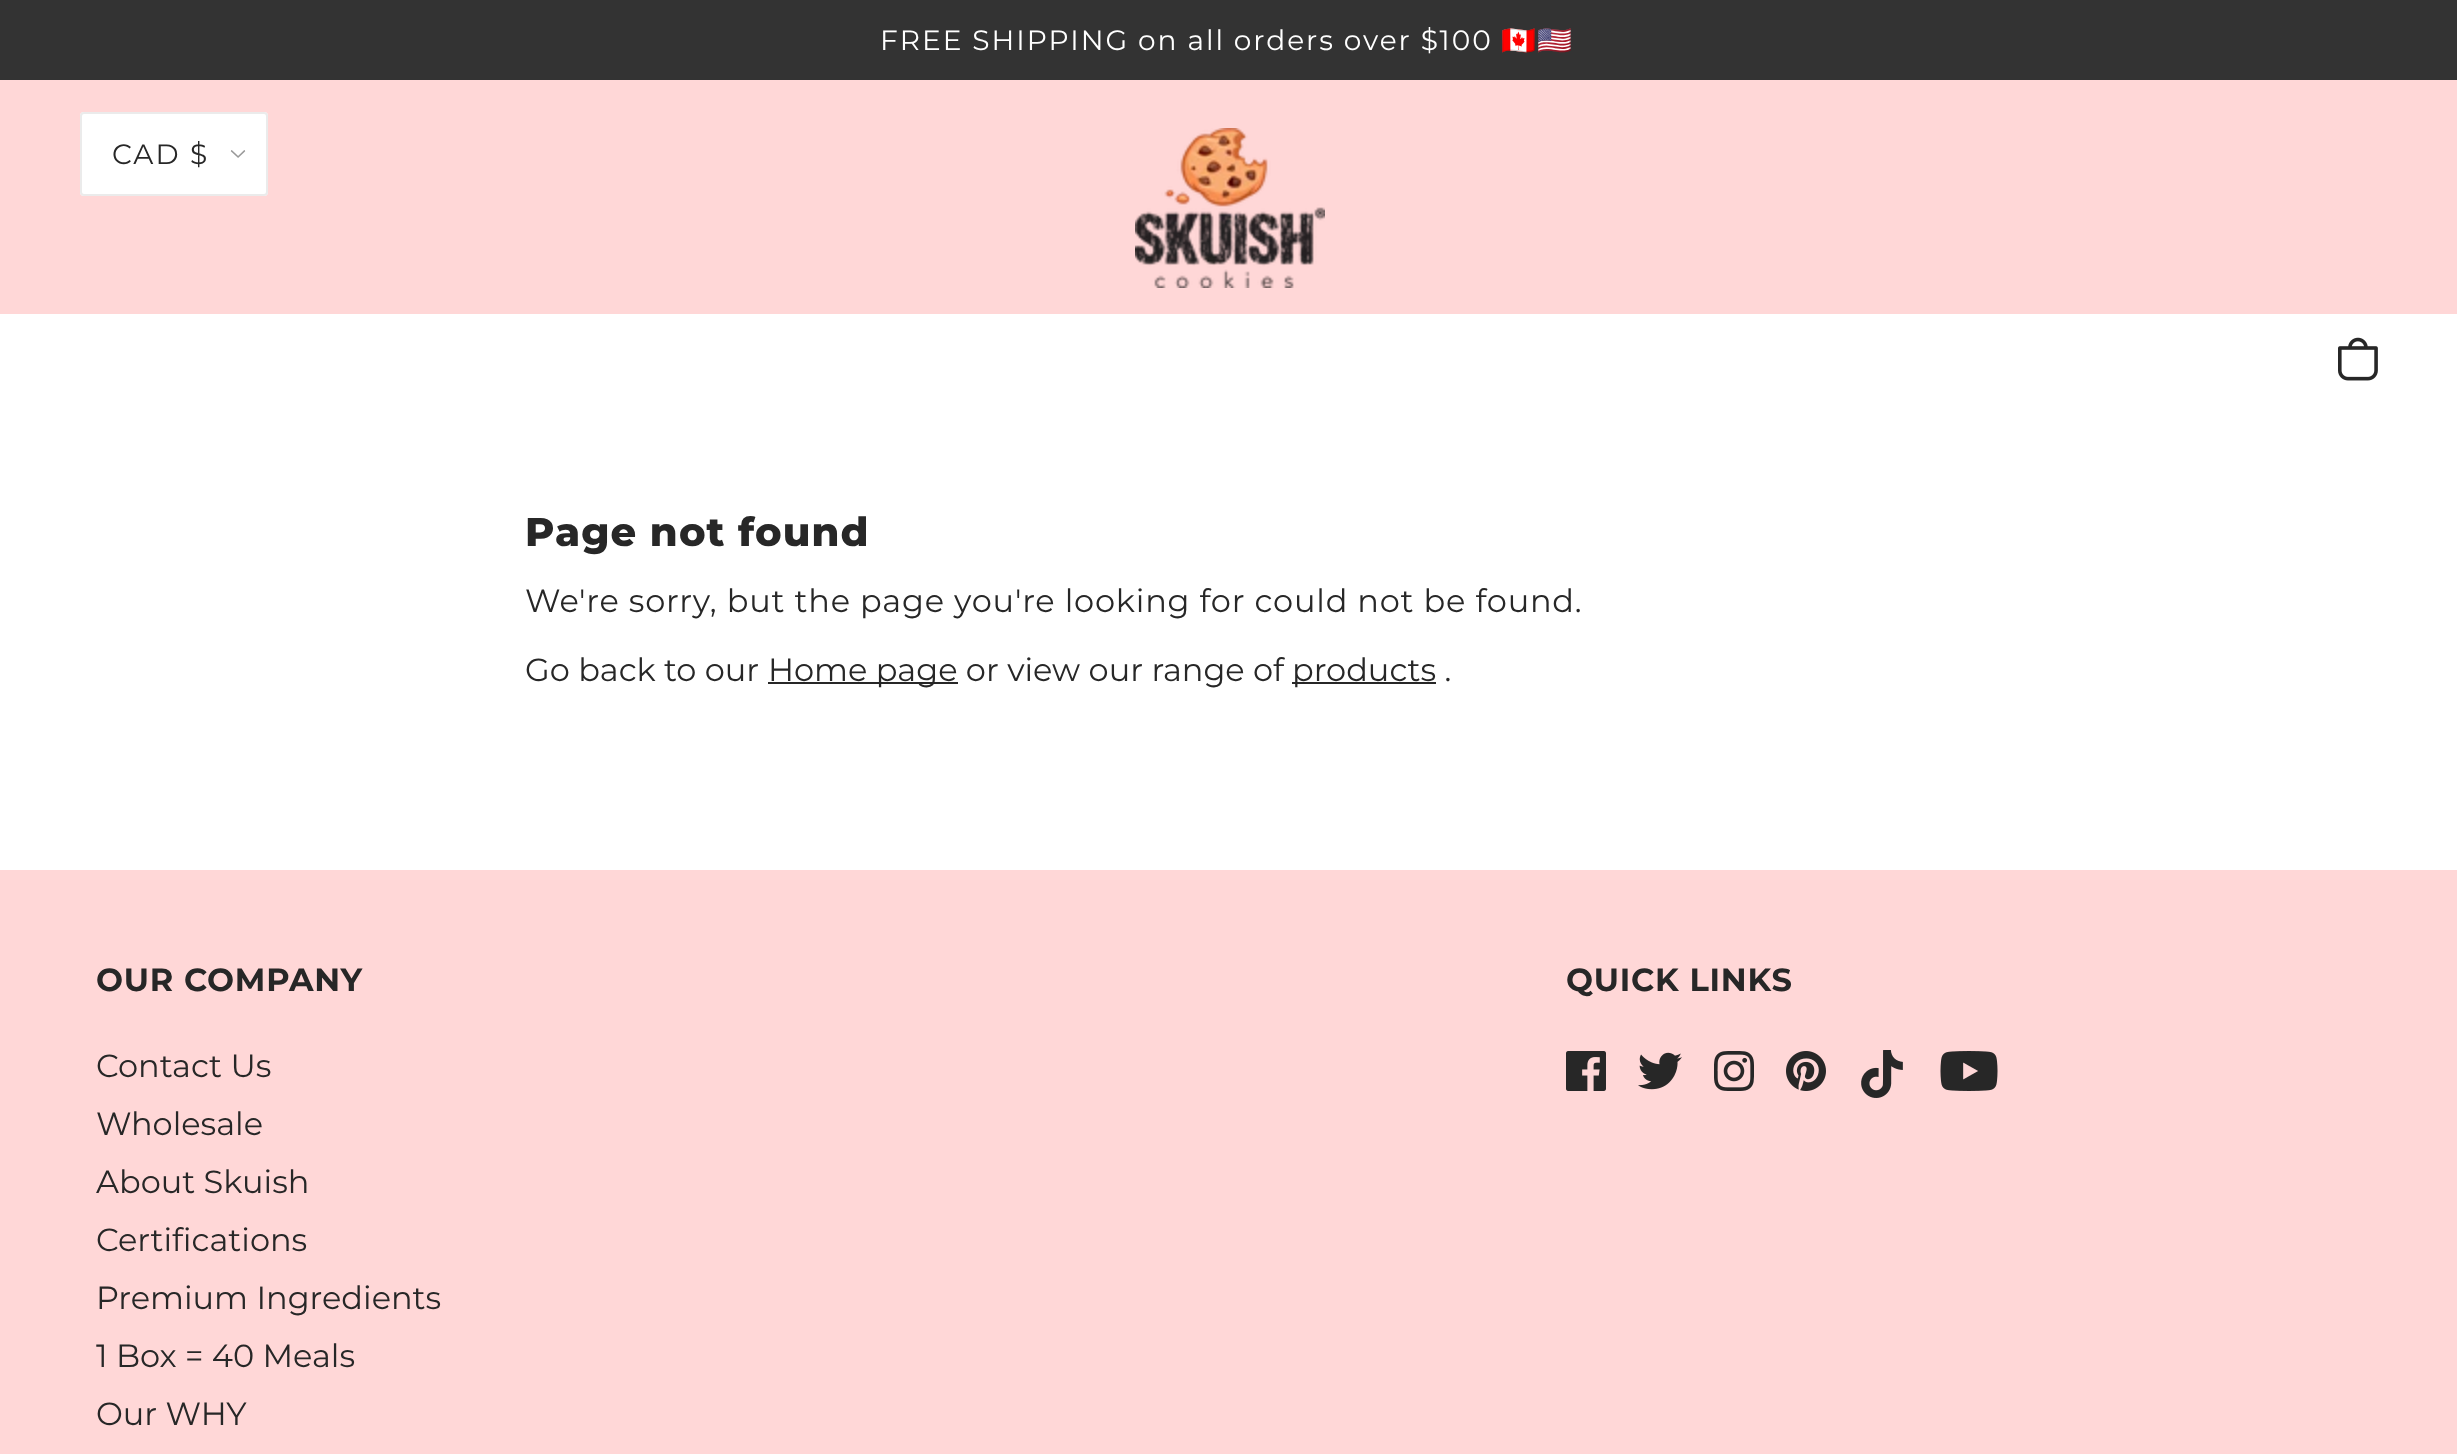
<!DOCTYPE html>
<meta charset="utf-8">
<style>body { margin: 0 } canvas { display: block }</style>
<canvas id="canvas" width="2457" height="1454"></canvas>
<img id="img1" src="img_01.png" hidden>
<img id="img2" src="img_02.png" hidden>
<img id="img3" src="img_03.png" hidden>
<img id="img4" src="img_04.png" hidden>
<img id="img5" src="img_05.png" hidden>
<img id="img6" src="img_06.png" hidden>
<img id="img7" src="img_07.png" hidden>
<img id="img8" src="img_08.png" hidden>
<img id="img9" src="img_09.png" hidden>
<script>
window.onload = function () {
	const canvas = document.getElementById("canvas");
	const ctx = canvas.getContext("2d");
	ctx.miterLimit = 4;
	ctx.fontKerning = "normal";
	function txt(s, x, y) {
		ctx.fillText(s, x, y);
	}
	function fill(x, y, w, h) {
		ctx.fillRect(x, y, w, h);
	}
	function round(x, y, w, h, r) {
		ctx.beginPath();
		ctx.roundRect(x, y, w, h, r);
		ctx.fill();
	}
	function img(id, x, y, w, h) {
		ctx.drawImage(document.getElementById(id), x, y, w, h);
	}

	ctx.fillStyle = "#FFFFFF";
	fill(0, 0, 2457, 1454);
	ctx.fillStyle = "#333333";
	fill(0, 0, 2457, 80);
	ctx.fillStyle = "#FFD7D7";
	fill(0, 80, 2457, 234);
	ctx.fillStyle = "#FFFFFF";
	round(80, 112, 188, 84, 4);
	img("img1", 230, 150, 16, 8);
	ctx.beginPath();
	ctx.roundRect(81, 113, 186, 82, 3);
	ctx.strokeStyle = "#EBEBEB";
	ctx.lineWidth = 2;
	ctx.stroke();
	img("img2", 1135, 128, 190, 160);
	img("img3", 2338, 337, 40, 44);
	ctx.fillStyle = "#272727";
	fill(768, 682, 190, 2);
	fill(1292, 682, 144, 2);
	ctx.fillStyle = "#FFD7D7";
	fill(0, 870, 2457, 584);
	img("img4", 1566, 1051, 40, 40);
	img("img5", 1638, 1052, 44, 38);
	img("img6", 1714, 1051, 40, 40);
	img("img7", 1786, 1051, 40, 40);
	img("img8", 1861, 1050, 42, 48);
	img("img9", 1940, 1051, 58, 40);
	ctx.letterSpacing = "2px";
	ctx.wordSpacing = "-0.5px";
	ctx.font = "28px Montserrat";
	ctx.fillStyle = "#FFFFFF";
	txt("FREE SHIPPING on all orders over $100", 880, 50);
	ctx.wordSpacing = "0px";
	ctx.font = "28px Noto Color Emoji";
	txt("🇨🇦🇺🇸", 1501, 50);
	ctx.font = "28px Montserrat";
	ctx.fillStyle = "#272727";
	txt("CAD $", 112, 164);
	ctx.letterSpacing = "1px";
	ctx.font = "800 40px Montserrat";
	txt("Page not found", 525, 546);
	ctx.letterSpacing = "0.8px";
	ctx.font = "32px Montserrat";
	txt("We're sorry, but the page you're looking for could not be found.", 525, 612);
	ctx.letterSpacing = "0px";
	txt("Go back to our", 525, 681);
	txt("Home page or view our range of", 768, 681);
	txt("products .", 1292, 681);
	ctx.letterSpacing = "0.8px";
	ctx.font = "bold 32px Montserrat";
	txt("OUR COMPANY", 96, 991);
	ctx.letterSpacing = "0px";
	ctx.font = "32px Montserrat";
	txt("Contact Us", 96, 1077);
	txt("Wholesale", 96, 1135);
	txt("About Skuish", 96, 1193);
	txt("Certifications", 96, 1251);
	txt("Premium Ingredients", 96, 1309);
	txt("1 Box = 40 Meals", 96, 1367);
	txt("Our WHY", 96, 1425);
	ctx.letterSpacing = "0.8px";
	ctx.font = "bold 32px Montserrat";
	txt("QUICK LINKS", 1566, 991);
};
</script>
